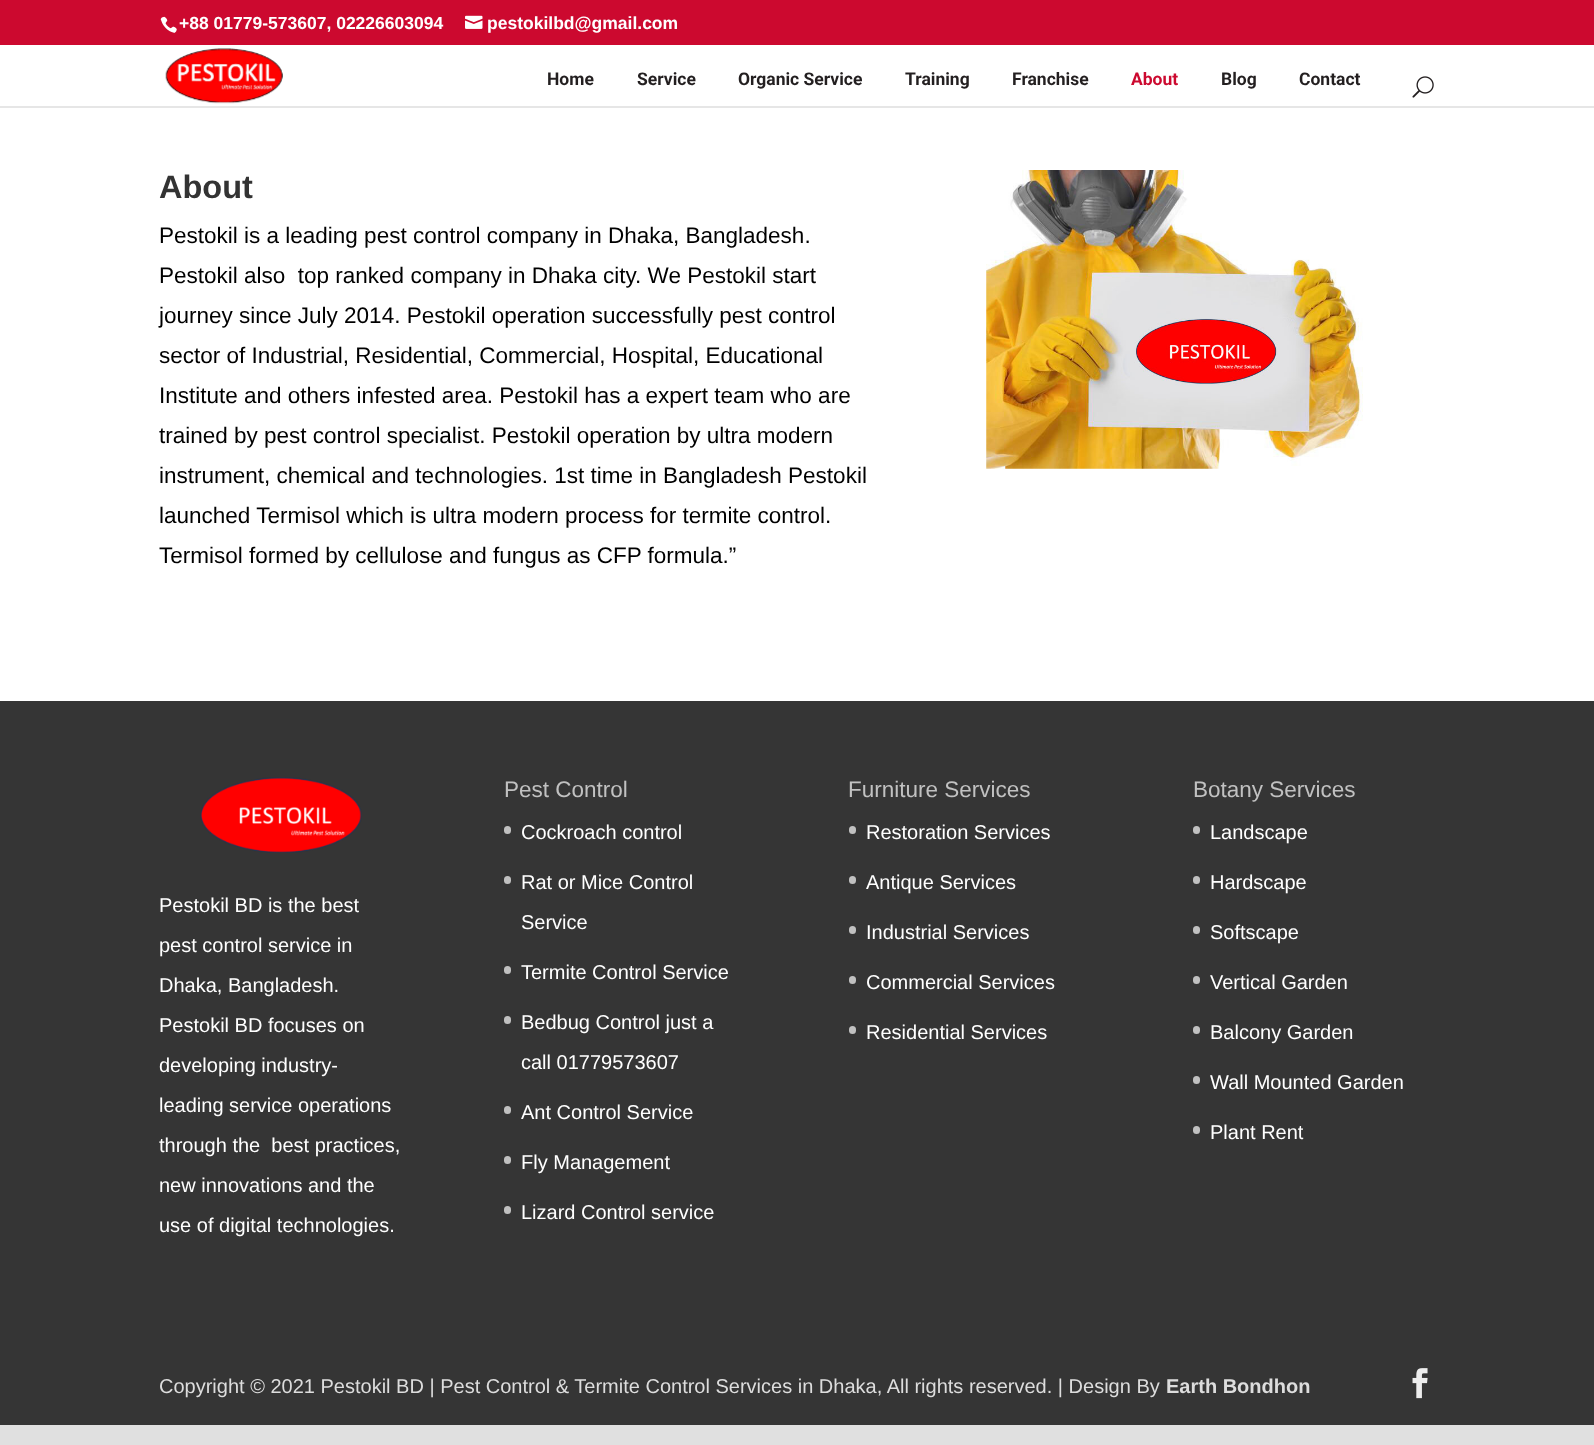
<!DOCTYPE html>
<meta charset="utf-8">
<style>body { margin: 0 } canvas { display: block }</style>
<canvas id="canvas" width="1594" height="1445"></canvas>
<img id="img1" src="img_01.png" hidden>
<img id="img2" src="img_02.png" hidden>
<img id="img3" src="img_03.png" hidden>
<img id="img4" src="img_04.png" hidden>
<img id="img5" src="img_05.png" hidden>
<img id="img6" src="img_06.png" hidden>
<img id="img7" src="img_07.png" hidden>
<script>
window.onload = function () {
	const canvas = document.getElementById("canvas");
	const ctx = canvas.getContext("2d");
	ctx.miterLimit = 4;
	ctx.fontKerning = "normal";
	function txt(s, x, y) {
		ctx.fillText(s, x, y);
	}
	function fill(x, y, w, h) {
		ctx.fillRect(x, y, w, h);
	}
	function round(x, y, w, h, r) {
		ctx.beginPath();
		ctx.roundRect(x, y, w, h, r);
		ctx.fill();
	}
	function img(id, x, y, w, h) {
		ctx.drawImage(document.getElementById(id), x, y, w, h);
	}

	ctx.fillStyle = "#E0E0E0";
	fill(0, 0, 1594, 1445);
	ctx.fillStyle = "#CC092F";
	fill(0, 0, 1594, 45);
	img("img1", 160, 16, 17, 17);
	img("img2", 465, 15, 18, 14);
	ctx.fillStyle = "#E6E6E6";
	fill(0, 106, 1594, 2);
	ctx.fillStyle = "#FFFFFF";
	fill(0, 45, 1594, 61);
	img("img3", 165, 48, 118, 56);
	img("img4", 1412, 76, 22, 22);
	fill(0, 108, 1594, 593);
	img("img5", 986, 170, 377, 299);
	ctx.fillStyle = "#353535";
	fill(0, 701, 1594, 724);
	img("img6", 200, 777, 162, 76);
	ctx.fillStyle = "#C1C1C1";
	round(504, 826, 7, 8, 3.5);
	round(504, 876, 7, 8, 3.5);
	round(504, 966, 7, 8, 3.5);
	round(504, 1016, 7, 8, 3.5);
	round(504, 1106, 7, 8, 3.5);
	round(504, 1156, 7, 8, 3.5);
	round(504, 1206, 7, 8, 3.5);
	round(849, 826, 7, 8, 3.5);
	round(849, 876, 7, 8, 3.5);
	round(849, 926, 7, 8, 3.5);
	round(849, 976, 7, 8, 3.5);
	round(849, 1026, 7, 8, 3.5);
	round(1193, 826, 7, 8, 3.5);
	round(1193, 876, 7, 8, 3.5);
	round(1193, 926, 7, 8, 3.5);
	round(1193, 976, 7, 8, 3.5);
	round(1193, 1026, 7, 8, 3.5);
	round(1193, 1076, 7, 8, 3.5);
	round(1193, 1126, 7, 8, 3.5);
	img("img7", 1412, 1368, 16, 31);
	ctx.font = "bold 17.5px Liberation Sans";
	ctx.fillStyle = "#FFFFFF";
	txt("+88 01779-573607, 02226603094", 179, 29);
	txt("pestokilbd@gmail.com", 487, 29);
	ctx.font = "bold 17.5px Roboto";
	ctx.fillStyle = "#231F20";
	txt("Home", 547, 85);
	txt("Service", 637, 85);
	txt("Organic Service", 738, 85);
	txt("Training", 905, 85);
	txt("Franchise", 1012, 85);
	ctx.fillStyle = "#CC092F";
	txt("About", 1131, 85);
	ctx.fillStyle = "#231F20";
	txt("Blog", 1221, 85);
	txt("Contact", 1299, 85);
	ctx.font = "bold 32.5px Liberation Sans";
	ctx.fillStyle = "#333333";
	txt("About", 159, 198);
	ctx.font = "22.5px Liberation Sans";
	ctx.fillStyle = "#000000";
	txt("Pestokil is a leading pest control company in Dhaka, Bangladesh.", 159, 243);
	txt("Pestokil also  top ranked company in Dhaka city. We Pestokil start", 159, 283);
	txt("journey since July 2014. Pestokil operation successfully pest control", 159, 323);
	txt("sector of Industrial, Residential, Commercial, Hospital, Educational", 159, 363);
	txt("Institute and others infested area. Pestokil has a expert team who are", 159, 403);
	txt("trained by pest control specialist. Pestokil operation by ultra modern", 159, 443);
	txt("instrument, chemical and technologies. 1st time in Bangladesh Pestokil", 159, 483);
	txt("launched Termisol which is ultra modern process for termite control.", 159, 523);
	txt("Termisol formed by cellulose and fungus as CFP formula.”", 159, 563);
	ctx.font = "20px Liberation Sans";
	ctx.fillStyle = "#FFFFFF";
	txt("Pestokil BD is the best", 159, 912);
	txt("pest control service in", 159, 952);
	txt("Dhaka, Bangladesh.", 159, 992);
	txt("Pestokil BD focuses on", 159, 1032);
	txt("developing industry-", 159, 1072);
	txt("leading service operations", 159, 1112);
	txt("through the  best practices,", 159, 1152);
	txt("new innovations and the", 159, 1192);
	txt("use of digital technologies.", 159, 1232);
	ctx.font = "22.5px Liberation Sans";
	ctx.fillStyle = "#C1C1C1";
	txt("Pest Control", 504, 797);
	ctx.font = "20px Liberation Sans";
	ctx.fillStyle = "#FFFFFF";
	txt("Cockroach control", 521, 839);
	txt("Rat or Mice Control", 521, 889);
	txt("Service", 521, 929);
	txt("Termite Control Service", 521, 979);
	txt("Bedbug Control just a", 521, 1029);
	txt("call 01779573607", 521, 1069);
	txt("Ant Control Service", 521, 1119);
	txt("Fly Management", 521, 1169);
	txt("Lizard Control service", 521, 1219);
	ctx.font = "22.5px Liberation Sans";
	ctx.fillStyle = "#C1C1C1";
	txt("Furniture Services", 848, 797);
	ctx.font = "20px Liberation Sans";
	ctx.fillStyle = "#FFFFFF";
	txt("Restoration Services", 866, 839);
	txt("Antique Services", 866, 889);
	txt("Industrial Services", 866, 939);
	txt("Commercial Services", 866, 989);
	txt("Residential Services", 866, 1039);
	ctx.font = "22.5px Liberation Sans";
	ctx.fillStyle = "#C1C1C1";
	txt("Botany Services", 1193, 797);
	ctx.font = "20px Liberation Sans";
	ctx.fillStyle = "#FFFFFF";
	txt("Landscape", 1210, 839);
	txt("Hardscape", 1210, 889);
	txt("Softscape", 1210, 939);
	txt("Vertical Garden", 1210, 989);
	txt("Balcony Garden", 1210, 1039);
	txt("Wall Mounted Garden", 1210, 1089);
	txt("Plant Rent", 1210, 1139);
	ctx.fillStyle = "#DDDDDD";
	txt("Copyright © 2021 Pestokil BD | Pest Control & Termite Control Services in Dhaka, All rights reserved. | Design By", 159, 1393);
	ctx.font = "bold 20px Liberation Sans";
	txt("Earth Bondhon", 1166, 1393);
};
</script>
